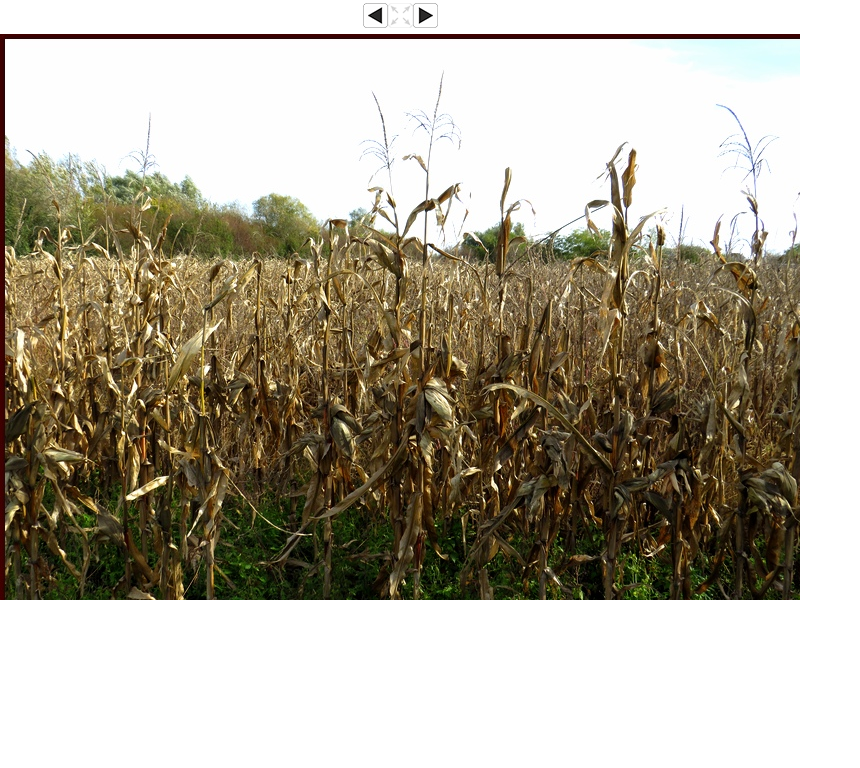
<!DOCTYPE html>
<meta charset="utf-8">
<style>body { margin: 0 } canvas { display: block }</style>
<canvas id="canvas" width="860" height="768"></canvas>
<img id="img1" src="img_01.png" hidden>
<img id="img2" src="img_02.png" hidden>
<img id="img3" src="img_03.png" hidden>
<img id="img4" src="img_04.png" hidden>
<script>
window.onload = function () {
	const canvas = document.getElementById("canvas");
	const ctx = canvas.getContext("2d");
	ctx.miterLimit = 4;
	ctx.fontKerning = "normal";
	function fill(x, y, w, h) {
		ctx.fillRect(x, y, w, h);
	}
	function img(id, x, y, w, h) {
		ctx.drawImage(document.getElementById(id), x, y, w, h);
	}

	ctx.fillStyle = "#FFFFFF";
	fill(0, 0, 860, 768);
	img("img1", 363, 3, 25, 25);
	img("img2", 388, 3, 25, 25);
	img("img3", 413, 3, 25, 25);
	img("img4", 0, 34, 800, 566);
};
</script>
